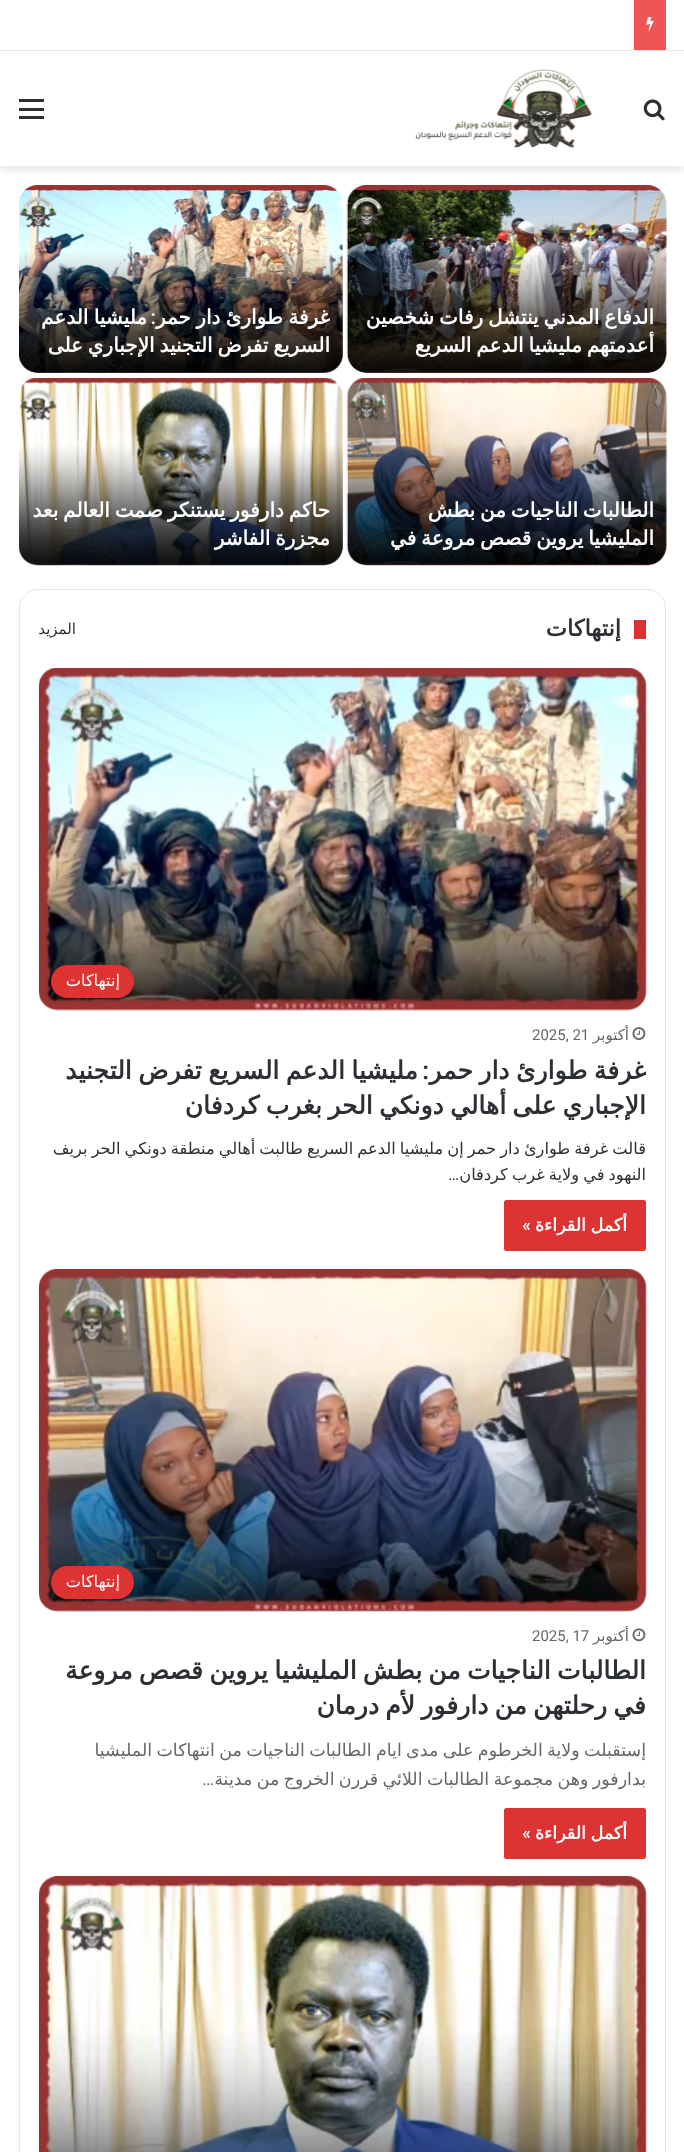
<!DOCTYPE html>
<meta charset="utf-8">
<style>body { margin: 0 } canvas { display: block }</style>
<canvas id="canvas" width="684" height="2152"></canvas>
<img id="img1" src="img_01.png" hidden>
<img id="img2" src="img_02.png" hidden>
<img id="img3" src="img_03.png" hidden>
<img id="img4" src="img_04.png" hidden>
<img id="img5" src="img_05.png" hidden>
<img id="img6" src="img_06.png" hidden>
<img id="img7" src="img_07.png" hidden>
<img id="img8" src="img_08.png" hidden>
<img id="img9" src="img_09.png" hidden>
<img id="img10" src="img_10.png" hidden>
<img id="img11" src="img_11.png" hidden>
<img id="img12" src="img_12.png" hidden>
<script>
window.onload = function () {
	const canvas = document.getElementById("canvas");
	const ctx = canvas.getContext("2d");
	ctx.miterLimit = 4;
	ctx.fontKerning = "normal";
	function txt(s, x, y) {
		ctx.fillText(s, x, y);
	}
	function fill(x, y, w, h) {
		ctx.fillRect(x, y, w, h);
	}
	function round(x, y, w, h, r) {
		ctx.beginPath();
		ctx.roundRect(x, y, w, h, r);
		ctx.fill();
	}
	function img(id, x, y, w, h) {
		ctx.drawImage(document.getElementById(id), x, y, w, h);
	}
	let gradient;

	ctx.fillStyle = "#FFFFFF";
	fill(0, 0, 684, 2152);
	ctx.save();
	ctx.beginPath();
	ctx.rect(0, 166, 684, 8);
	ctx.clip();
	ctx.fillStyle = "rgba(0, 0, 0, 0.1)";
	ctx.filter = "blur(4.5px)";
	ctx.beginPath();
	ctx.rect(0, 55, 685, 115);
	ctx.fill();
	ctx.filter = "none";
	ctx.restore();
	fill(6, 49, 673, 1);
	ctx.fillStyle = "#E6E6E6";
	fill(0, 50, 684, 1);
	ctx.fillStyle = "#F05555";
	fill(634, 0, 32, 50);
	img("img1", 646, 17, 8, 14);
	img("img2", 643, 99, 22, 22);
	img("img3", 415, 69, 178, 80);
	ctx.fillStyle = "#2C2F34";
	fill(19, 108, 25, 3);
	fill(19, 99, 25, 3);
	fill(19, 116, 25, 3);
	img("img4", 346, 185, 321, 188);
	gradient = ctx.createLinearGradient(507, 251, 507, 373);
	gradient.addColorStop(0, "rgba(0, 0, 0, 0)");
	gradient.addColorStop(1, "rgba(0, 0, 0, 0.75)");
	ctx.fillStyle = gradient;
	ctx.beginPath();
	ctx.roundRect(348, 251, 318, 122, [0, 0, 19, 19]);
	ctx.fill();
	img("img5", 19, 185, 324, 188);
	gradient = ctx.createLinearGradient(181, 251, 181, 373);
	gradient.addColorStop(0, "rgba(0, 0, 0, 0)");
	gradient.addColorStop(1, "rgba(0, 0, 0, 0.75)");
	ctx.fillStyle = gradient;
	ctx.beginPath();
	ctx.roundRect(19, 251, 324, 122, [0, 0, 19, 19]);
	ctx.fill();
	img("img6", 346, 378, 321, 188);
	gradient = ctx.createLinearGradient(507, 444, 507, 565);
	gradient.addColorStop(0, "rgba(0, 0, 0, 0)");
	gradient.addColorStop(1, "rgba(0, 0, 0, 0.75)");
	ctx.fillStyle = gradient;
	ctx.beginPath();
	ctx.roundRect(348, 444, 318, 121, [0, 0, 19, 19]);
	ctx.fill();
	img("img7", 19, 378, 324, 188);
	gradient = ctx.createLinearGradient(181, 444, 181, 565);
	gradient.addColorStop(0, "rgba(0, 0, 0, 0)");
	gradient.addColorStop(1, "rgba(0, 0, 0, 0.75)");
	ctx.fillStyle = gradient;
	ctx.beginPath();
	ctx.roundRect(19, 444, 324, 121, [0, 0, 19, 19]);
	ctx.fill();
	ctx.beginPath();
	ctx.roundRect(19.5, 589.5, 646, 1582, 18.5);
	ctx.strokeStyle = "#E6E6E6";
	ctx.stroke();
	ctx.fillStyle = "#DD3333";
	fill(634, 620, 12, 19);
	img("img8", 39, 668, 608, 343);
	round(51, 965, 83, 33, 16.5);
	img("img9", 632, 1027, 14, 13);
	round(504, 1200, 142, 51, 2.5);
	img("img10", 39, 1269, 608, 343);
	round(51, 1566, 83, 33, 16.5);
	img("img11", 632, 1628, 14, 14);
	round(504, 1808, 142, 51, 2.5);
	img("img12", 39, 1876, 608, 276);
	ctx.save();
	ctx.beginPath();
	ctx.rect(360, 304, 294, 56);
	ctx.clip();
	ctx.wordSpacing = "-1.5px";
	ctx.direction = "rtl";
	ctx.font = "bold 20px DejaVu Sans";
	ctx.fillStyle = "#FFFFFF";
	txt("الدفاع المدني ينتشل رفات شخصين", 654, 324);
	txt("أعدمتهم مليشيا الدعم السريع", 654, 352);
	ctx.restore();
	ctx.direction = "rtl";
	ctx.font = "600 20px Roboto";
	ctx.fillStyle = "#FFFFFF";
	txt(":", 156, 324);
	ctx.save();
	ctx.beginPath();
	ctx.rect(31, 304, 299, 56);
	ctx.clip();
	ctx.wordSpacing = "-1px";
	ctx.font = "bold 20px DejaVu Sans";
	txt("غرفة طوارئ دار حمر", 330, 324);
	ctx.restore();
	ctx.wordSpacing = "-1px";
	ctx.font = "bold 20px DejaVu Sans";
	txt("مليشيا الدعم", 147, 324);
	ctx.save();
	ctx.beginPath();
	ctx.rect(31, 304, 299, 56);
	ctx.clip();
	ctx.wordSpacing = "-1.5px";
	txt("السريع تفرض التجنيد الإجباري على", 330, 352);
	ctx.restore();
	ctx.save();
	ctx.beginPath();
	ctx.rect(360, 496, 294, 57);
	ctx.clip();
	ctx.wordSpacing = "-1.5px";
	txt("الطالبات الناجيات من بطش", 654, 517);
	txt("المليشيا يروين قصص مروعة في", 654, 545);
	ctx.restore();
	ctx.save();
	ctx.beginPath();
	ctx.rect(31, 496, 299, 57);
	ctx.clip();
	ctx.wordSpacing = "-1.5px";
	txt("حاكم دارفور يستنكر صمت العالم بعد", 330, 517);
	ctx.restore();
	ctx.wordSpacing = "-1.5px";
	txt("مجزرة الفاشر", 330, 545);
	ctx.wordSpacing = "0px";
	ctx.font = "bold 22.5px DejaVu Sans";
	ctx.fillStyle = "#2C2F34";
	txt("إنتهاكات", 621, 636);
	ctx.font = "15px DejaVu Sans";
	txt("المزيد", 76, 634);
	ctx.font = "16.25px DejaVu Sans";
	ctx.fillStyle = "#FFFFFF";
	txt("إنتهاكات", 120, 986);
	ctx.font = "15px DejaVu Sans";
	ctx.fillStyle = "#666666";
	txt("أكتوبر", 629, 1040);
	ctx.direction = "ltr";
	ctx.font = "15px Roboto";
	txt("2025, 21", 532, 1040);
	ctx.direction = "rtl";
	ctx.font = "600 25px Roboto";
	ctx.fillStyle = "#2C2F34";
	txt(":", 429, 1079);
	ctx.wordSpacing = "-1.5px";
	ctx.font = "bold 25px DejaVu Sans";
	txt("غرفة طوارئ دار حمر", 646, 1079);
	txt("مليشيا الدعم السريع تفرض التجنيد", 418, 1079);
	ctx.wordSpacing = "-1.75px";
	txt("الإجباري على أهالي دونكي الحر بغرب كردفان", 646, 1114);
	ctx.wordSpacing = "-1.1px";
	ctx.font = "16.25px DejaVu Sans";
	txt("قالت غرفة طوارئ دار حمر إن مليشيا الدعم السريع طالبت أهالي منطقة دونكي الحر بريف", 646, 1154);
	txt("النهود في ولاية غرب كردفان", 646, 1180);
	ctx.wordSpacing = "0px";
	ctx.font = "16.25px Roboto";
	txt("…", 459, 1180);
	ctx.wordSpacing = "-1px";
	ctx.font = "bold 17.5px DejaVu Sans";
	ctx.fillStyle = "#FFFFFF";
	txt("أكمل القراءة", 627, 1231);
	ctx.wordSpacing = "0px";
	ctx.font = "600 17.5px Roboto";
	txt("»", 531, 1231);
	ctx.font = "16.25px DejaVu Sans";
	txt("إنتهاكات", 120, 1587);
	ctx.font = "15px DejaVu Sans";
	ctx.fillStyle = "#666666";
	txt("أكتوبر", 629, 1641);
	ctx.direction = "ltr";
	ctx.font = "15px Roboto";
	txt("2025, 17", 532, 1641);
	ctx.wordSpacing = "-1.75px";
	ctx.direction = "rtl";
	ctx.font = "bold 25px DejaVu Sans";
	ctx.fillStyle = "#2C2F34";
	txt("الطالبات الناجيات من بطش المليشيا يروين قصص مروعة", 646, 1679);
	txt("في رحلتهن من دارفور لأم درمان", 646, 1714);
	ctx.wordSpacing = "-1.25px";
	ctx.font = "17.5px DejaVu Sans";
	ctx.fillStyle = "#666666";
	txt("إستقبلت ولاية الخرطوم على مدى ايام الطالبات الناجيات من انتهاكات المليشيا", 646, 1756);
	txt("بدارفور وهن مجموعة الطالبات اللائي قررن الخروج من مدينة", 646, 1785);
	ctx.wordSpacing = "0px";
	ctx.font = "17.5px Roboto";
	txt("…", 214, 1785);
	ctx.wordSpacing = "-1px";
	ctx.font = "bold 17.5px DejaVu Sans";
	ctx.fillStyle = "#FFFFFF";
	txt("أكمل القراءة", 627, 1839);
	ctx.wordSpacing = "0px";
	ctx.font = "600 17.5px Roboto";
	txt("»", 531, 1839);
};
</script>
